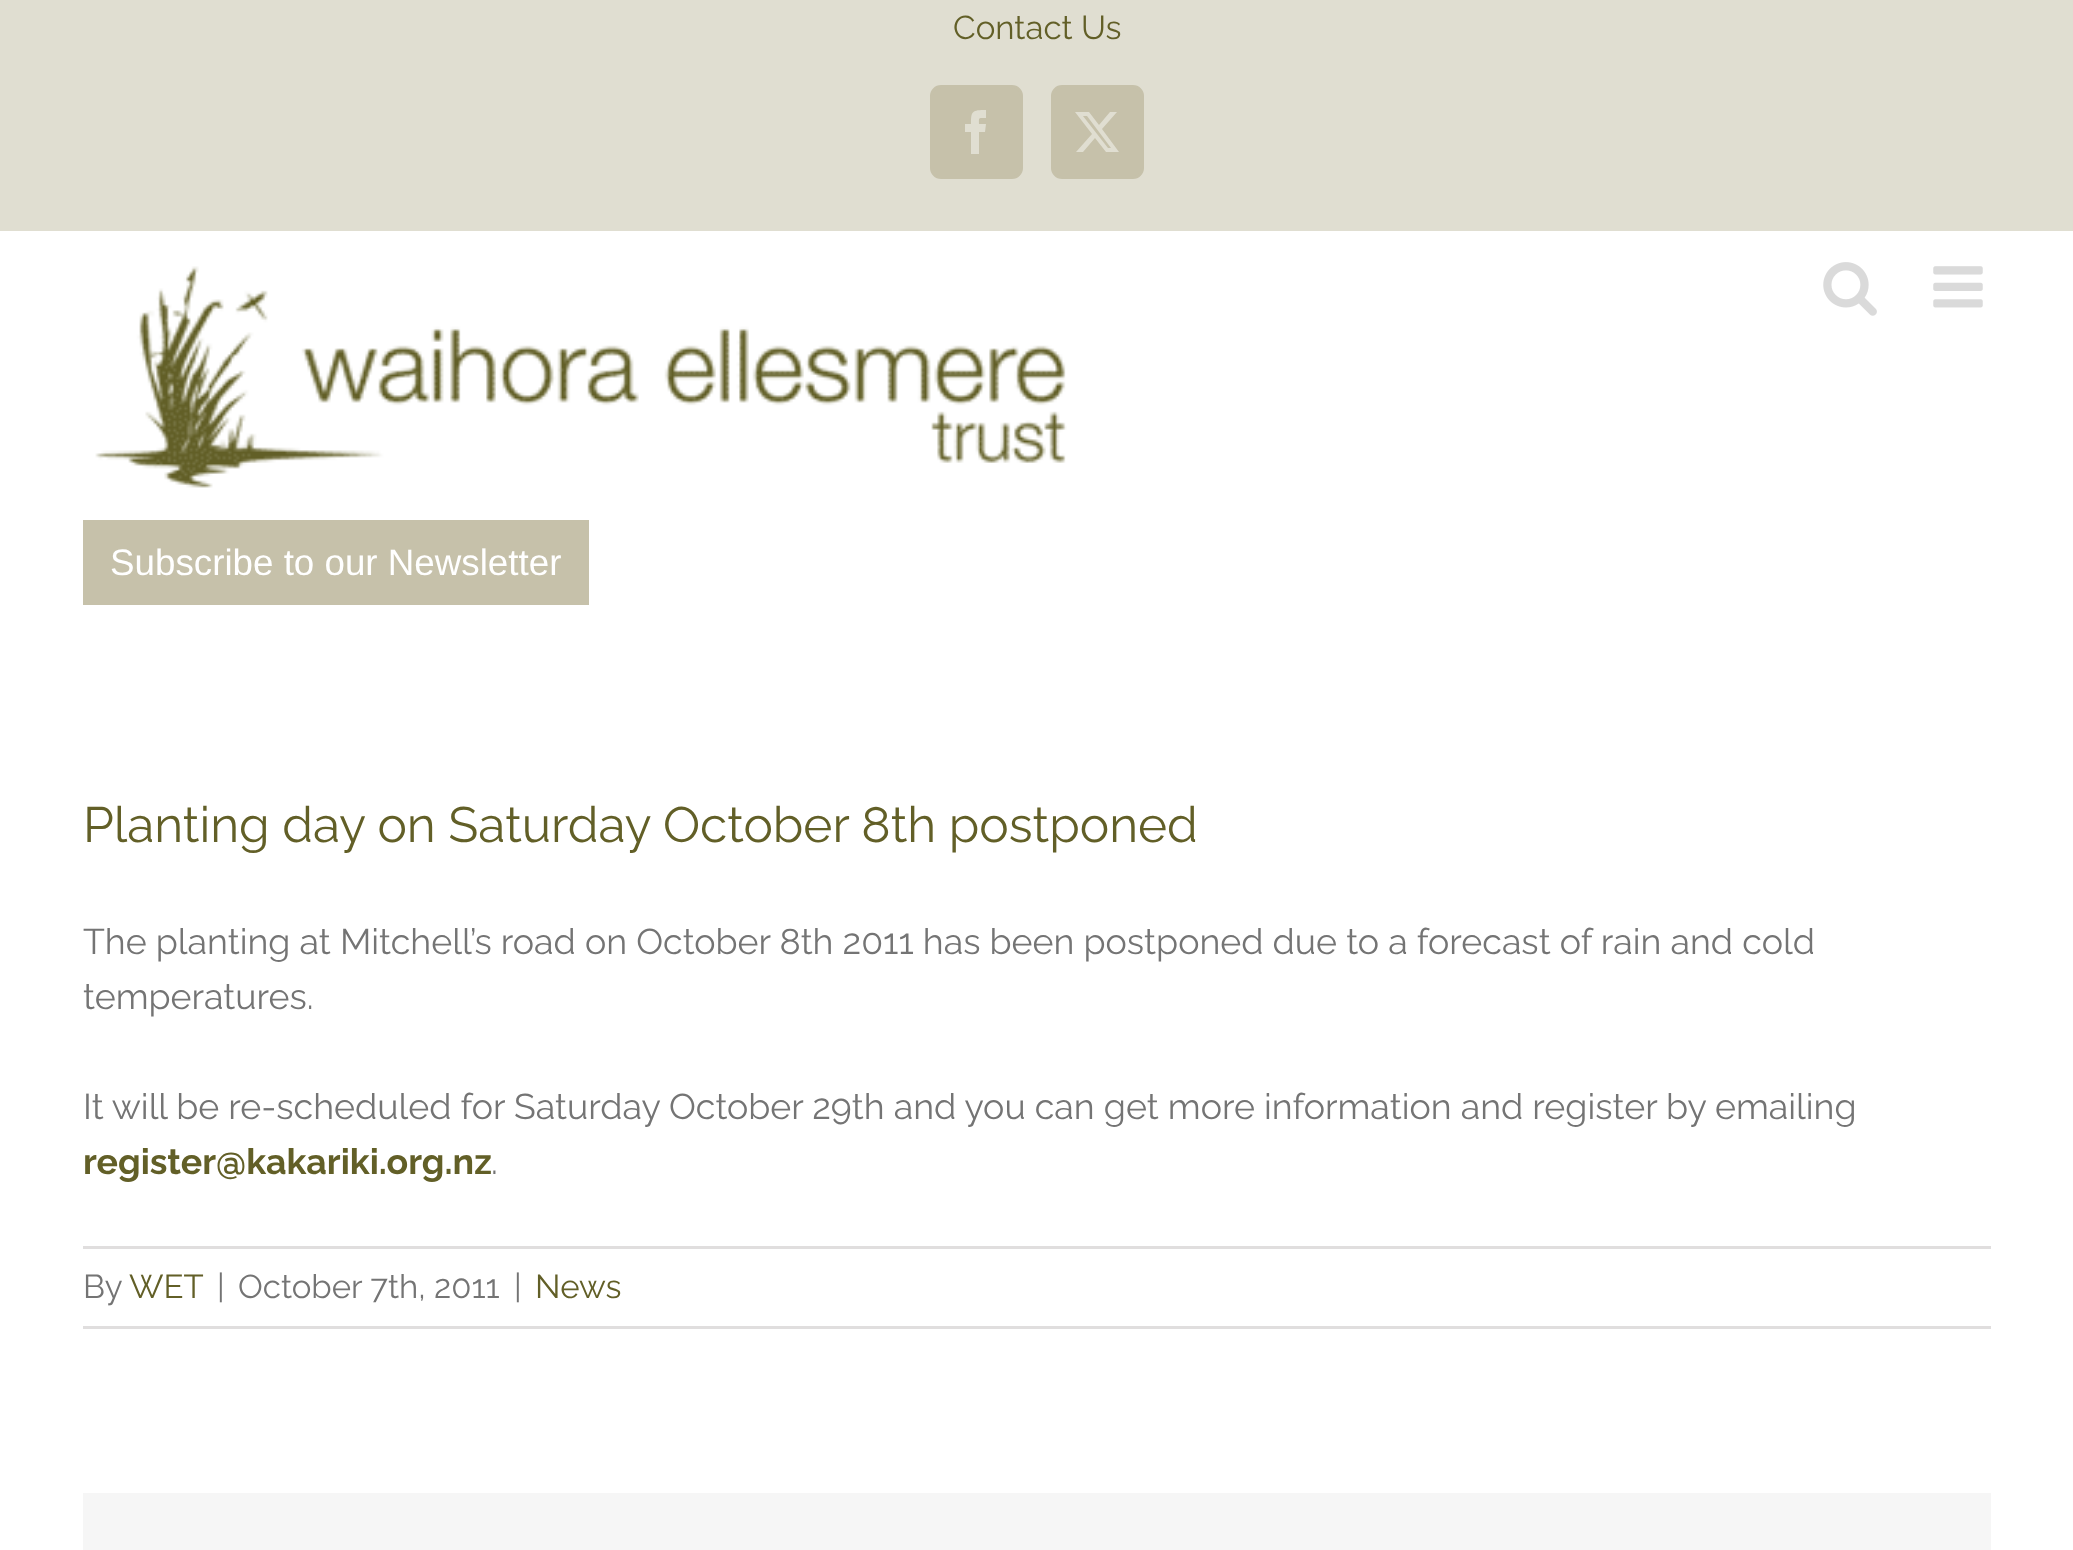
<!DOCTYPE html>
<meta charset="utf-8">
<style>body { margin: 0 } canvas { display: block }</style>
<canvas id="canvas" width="2073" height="1550"></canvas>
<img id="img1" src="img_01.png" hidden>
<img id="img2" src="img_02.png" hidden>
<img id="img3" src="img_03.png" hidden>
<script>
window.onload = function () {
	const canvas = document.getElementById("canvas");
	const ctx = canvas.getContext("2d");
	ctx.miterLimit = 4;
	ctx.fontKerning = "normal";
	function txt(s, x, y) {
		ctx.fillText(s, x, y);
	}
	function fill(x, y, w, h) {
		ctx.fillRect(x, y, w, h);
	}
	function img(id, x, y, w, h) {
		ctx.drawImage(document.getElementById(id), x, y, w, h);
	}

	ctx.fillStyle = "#FFFFFF";
	fill(0, 0, 2073, 1550);
	ctx.fillStyle = "#E0DED1";
	fill(0, 0, 2073, 231);
	ctx.fillStyle = "#C6C1AA";
	ctx.beginPath();
	ctx.roundRect(931.5, 86.5, 90, 91, 9.5);
	ctx.fill();
	ctx.strokeStyle = "#C6C1AA";
	ctx.lineWidth = 3;
	ctx.stroke();
	ctx.fillStyle = "#E0DED1";
	ctx.beginPath();
	ctx.moveTo(979, 154);
	ctx.lineTo(971, 154);
	ctx.lineTo(971, 132);
	ctx.lineTo(965, 132);
	ctx.lineTo(965, 124);
	ctx.lineTo(971, 124);
	ctx.bezierCurveTo(971, 111, 972, 110, 986, 110);
	ctx.lineTo(986, 118);
	ctx.bezierCurveTo(978, 118, 979, 117, 979, 124);
	ctx.lineTo(986, 124);
	ctx.lineTo(985, 132);
	ctx.lineTo(979, 132);
	ctx.closePath();
	ctx.fill();
	ctx.fillStyle = "#C6C1AA";
	ctx.beginPath();
	ctx.roundRect(1052.5, 86.5, 90, 91, 9.5);
	ctx.fill();
	ctx.stroke();
	ctx.fillStyle = "#E0DED1";
	ctx.beginPath();
	ctx.moveTo(1110, 112);
	ctx.lineTo(1117, 112);
	ctx.lineTo(1102, 129);
	ctx.lineTo(1119, 152);
	ctx.lineTo(1106, 152);
	ctx.lineTo(1095, 138);
	ctx.lineTo(1083, 152);
	ctx.lineTo(1076, 152);
	ctx.lineTo(1092, 134);
	ctx.lineTo(1075, 112);
	ctx.lineTo(1089, 112);
	ctx.lineTo(1099, 125);
	ctx.closePath();
	ctx.moveTo(1108, 148);
	ctx.lineTo(1111, 148);
	ctx.lineTo(1087, 116);
	ctx.lineTo(1083, 116);
	ctx.closePath();
	ctx.fill();
	img("img1", 1823, 262, 54, 54);
	img("img2", 1933, 266, 50, 42);
	img("img3", 95, 266, 972, 222);
	ctx.fillStyle = "#C6C1AA";
	fill(83, 520, 506, 85);
	ctx.fillStyle = "#E0DEDE";
	fill(83, 1246, 1908, 3);
	fill(83, 1326, 1908, 3);
	ctx.fillStyle = "#F6F6F6";
	fill(83, 1493, 1908, 57);
	ctx.font = "33px Raleway";
	ctx.fillStyle = "#625F27";
	txt("Contact Us", 953, 39);
	ctx.font = "36.75px Liberation Sans";
	ctx.fillStyle = "#FFFFFF";
	txt("Subscribe to our Newsletter", 110, 575);
	ctx.font = "49.5px Raleway";
	ctx.fillStyle = "#625F27";
	txt("Planting day on Saturday October 8th postponed", 83, 842);
	ctx.font = "35.75px Raleway";
	ctx.fillStyle = "#747474";
	txt("The planting at Mitchell’s road on October 8th 2011 has been postponed due to a forecast of rain and cold", 83, 954);
	txt("temperatures.", 83, 1009);
	txt("It will be re-scheduled for Saturday October 29th and you can get more information and register by emailing", 83, 1119);
	ctx.font = "bold 35.75px Raleway";
	ctx.fillStyle = "#625F27";
	txt("register@kakariki.org.nz", 83, 1174);
	ctx.font = "35.75px Raleway";
	ctx.fillStyle = "#747474";
	txt(".", 491, 1174);
	ctx.font = "33px Raleway";
	txt("By", 83, 1298);
	ctx.fillStyle = "#625F27";
	txt("WET", 129, 1298);
	ctx.fillStyle = "#747474";
	txt("|", 217, 1298);
	txt("October 7th, 2011", 238, 1298);
	txt("|", 514, 1298);
	ctx.fillStyle = "#625F27";
	txt("News", 535, 1298);
};
</script>
